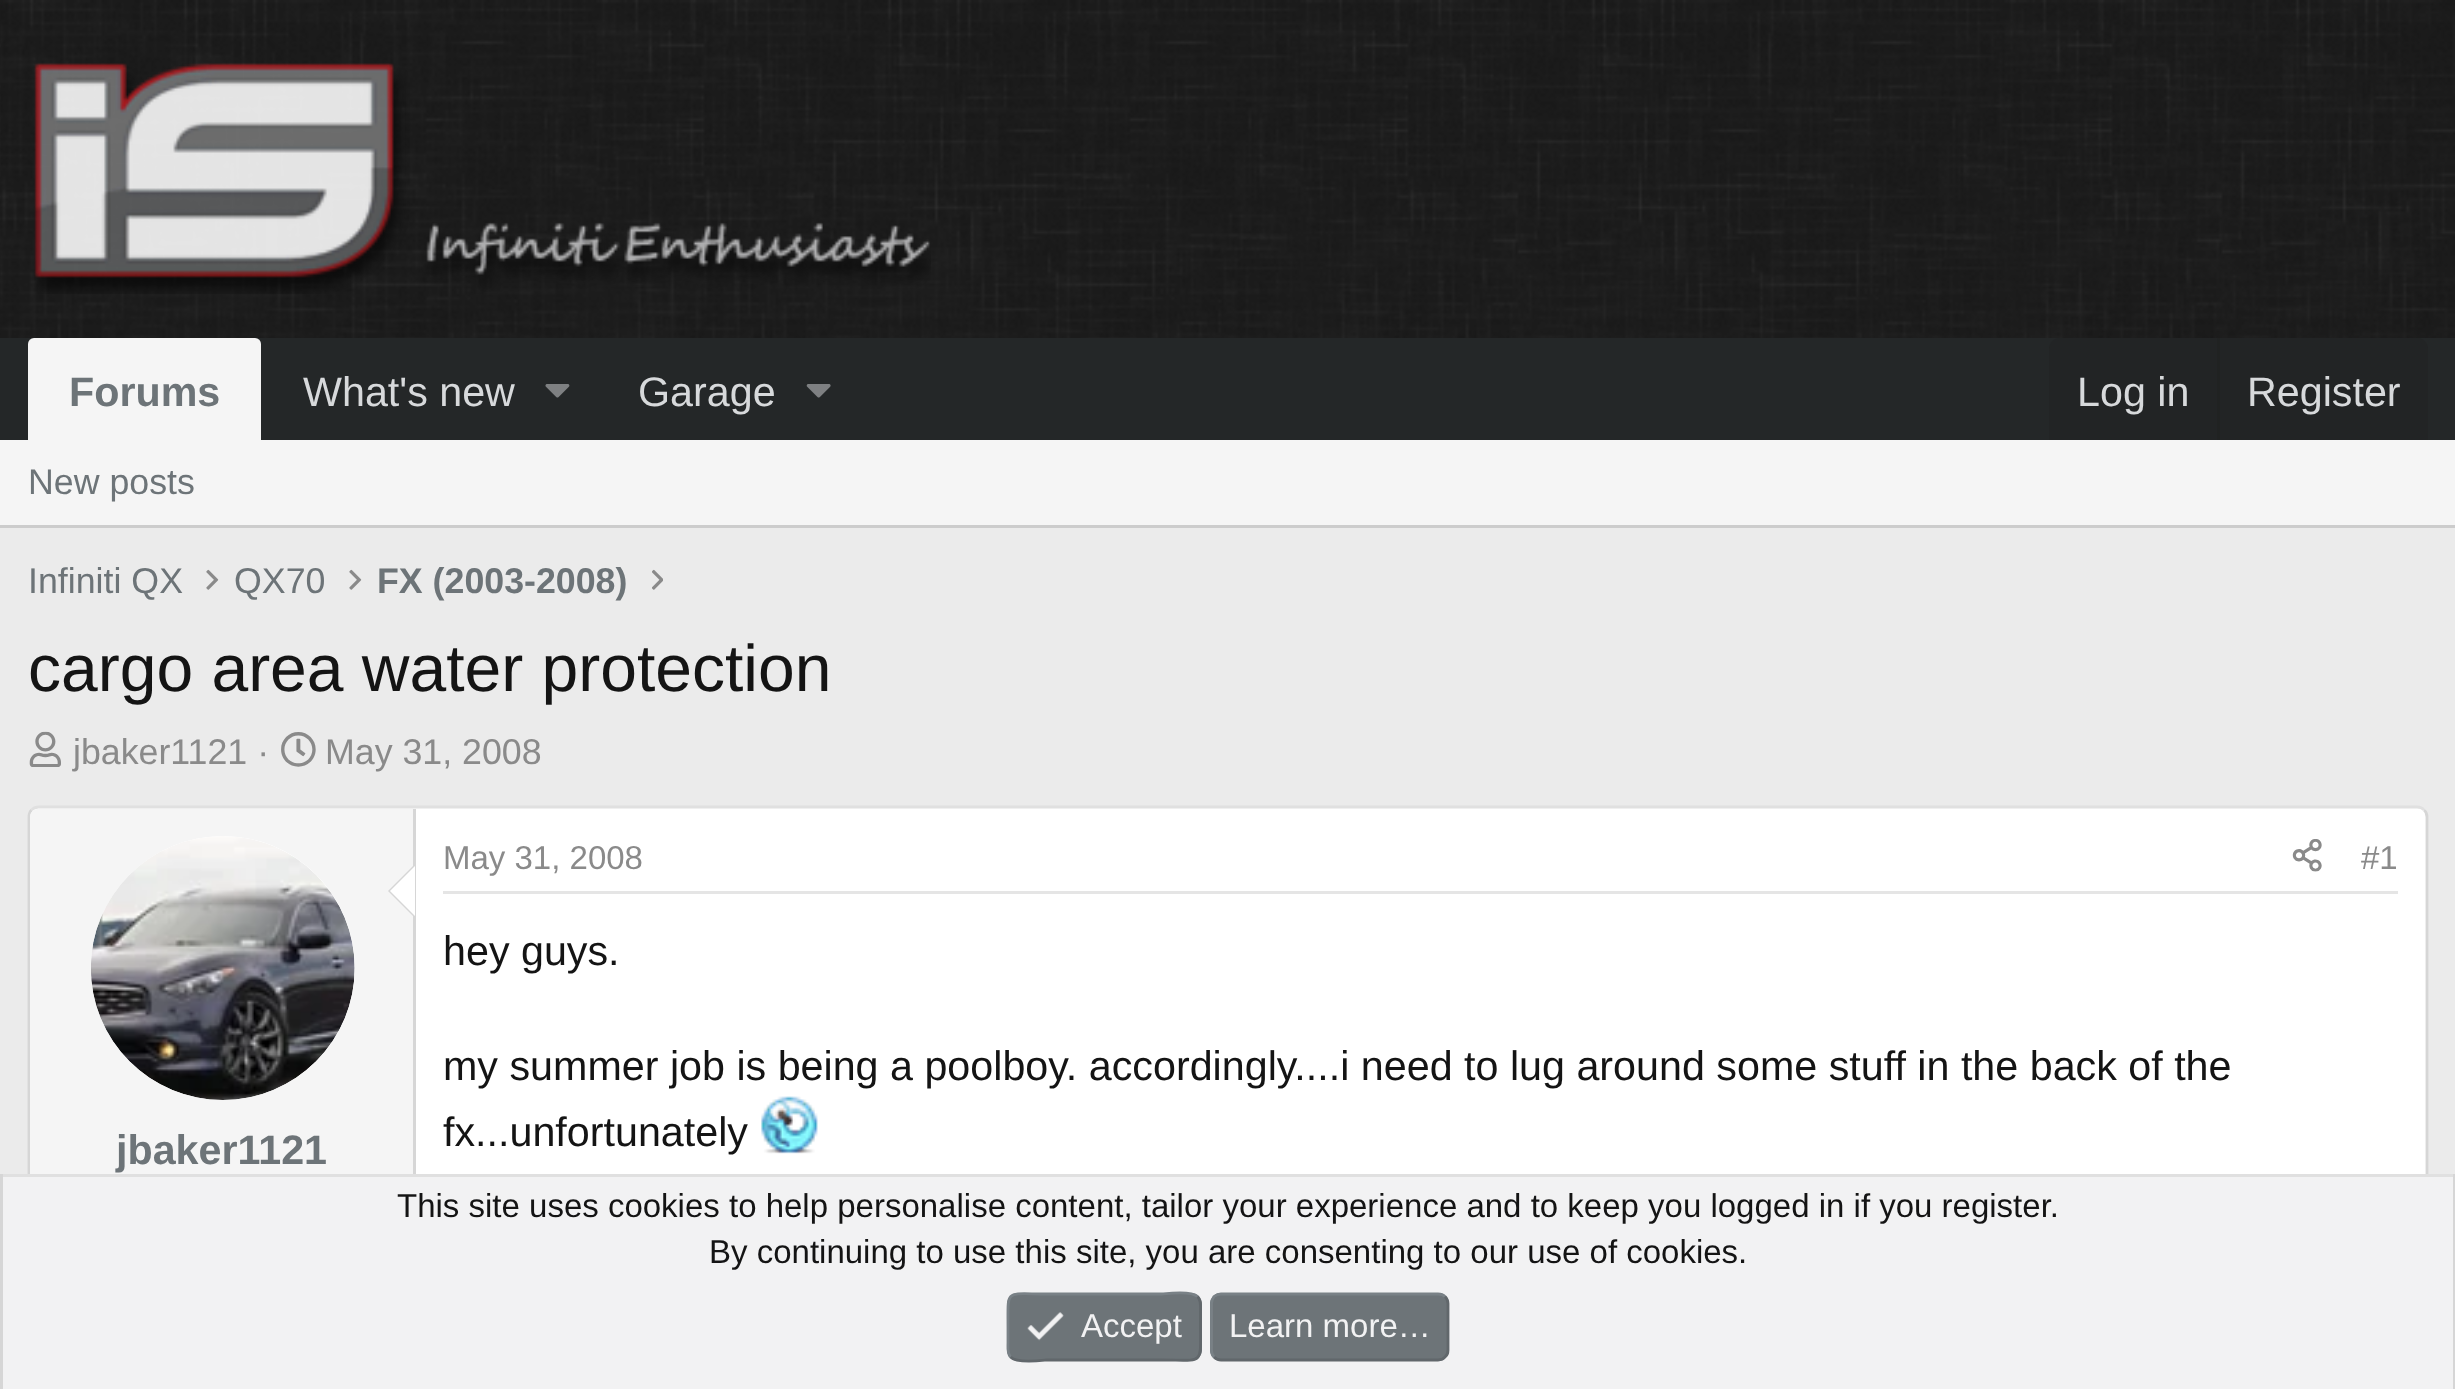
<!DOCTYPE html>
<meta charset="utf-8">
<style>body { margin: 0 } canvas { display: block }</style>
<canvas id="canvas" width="2455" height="1389"></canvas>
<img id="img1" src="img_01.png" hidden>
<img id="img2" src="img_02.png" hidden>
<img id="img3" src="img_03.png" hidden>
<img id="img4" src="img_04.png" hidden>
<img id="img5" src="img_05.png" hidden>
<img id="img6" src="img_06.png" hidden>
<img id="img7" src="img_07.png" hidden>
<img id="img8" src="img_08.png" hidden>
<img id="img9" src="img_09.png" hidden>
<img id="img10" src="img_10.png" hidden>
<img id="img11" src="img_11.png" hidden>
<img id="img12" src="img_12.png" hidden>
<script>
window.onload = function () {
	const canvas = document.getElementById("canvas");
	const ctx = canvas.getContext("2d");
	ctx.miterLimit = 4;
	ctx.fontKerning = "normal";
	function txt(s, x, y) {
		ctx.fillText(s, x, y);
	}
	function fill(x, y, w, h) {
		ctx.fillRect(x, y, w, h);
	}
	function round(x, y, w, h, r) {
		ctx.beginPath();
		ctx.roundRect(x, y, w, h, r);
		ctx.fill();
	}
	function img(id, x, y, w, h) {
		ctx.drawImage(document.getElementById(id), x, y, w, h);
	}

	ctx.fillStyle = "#EBEBEB";
	fill(0, 0, 2455, 1389);
	img("img1", 0, 0, 2455, 338);
	img("img2", 34, 63, 897, 231);
	ctx.fillStyle = "#242728";
	fill(0, 338, 2455, 102);
	ctx.fillStyle = "#F5F5F5";
	ctx.beginPath();
	ctx.roundRect(28, 338, 233, 102, [6, 6, 0, 0]);
	ctx.fill();
	img("img3", 545, 384, 25, 14);
	img("img4", 806, 384, 25, 14);
	ctx.fillStyle = "#222425";
	ctx.beginPath();
	ctx.roundRect(2049, 338, 379, 102, [11, 11, 0, 0]);
	ctx.fill();
	ctx.fillStyle = "#202222";
	fill(2217, 338, 3, 102);
	ctx.fillStyle = "#F5F5F5";
	fill(0, 440, 2455, 85);
	ctx.fillStyle = "#CCCCCC";
	fill(0, 525, 2455, 3);
	img("img5", 206, 569, 13, 21);
	img("img5", 349, 569, 13, 21);
	img("img6", 652, 569, 11, 21);
	img("img7", 29, 731, 32, 36);
	img("img8", 281, 732, 35, 35);
	ctx.fillStyle = "#FFFFFF";
	round(28, 806, 2400, 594, 11);
	ctx.beginPath();
	ctx.moveTo(31.5, 810);
	ctx.bezierCurveTo(33.5, 808, 36, 807, 38.5, 807);
	ctx.lineTo(2417, 807);
	ctx.bezierCurveTo(2420, 807, 2422.5, 808, 2424, 810);
	ctx.strokeStyle = "#E0E0E0";
	ctx.lineWidth = 2.8;
	ctx.stroke();
	ctx.beginPath();
	ctx.moveTo(2424, 810);
	ctx.bezierCurveTo(2426, 811.5, 2427, 814, 2427, 817);
	ctx.lineTo(2427, 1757);
	ctx.bezierCurveTo(2427, 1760, 2426, 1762.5, 2424, 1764);
	ctx.strokeStyle = "#D6D6D6";
	ctx.stroke();
	ctx.beginPath();
	ctx.moveTo(31.5, 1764);
	ctx.bezierCurveTo(30, 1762.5, 29, 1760, 29, 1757);
	ctx.lineTo(29, 817);
	ctx.bezierCurveTo(29, 814, 30, 811.5, 31.5, 810);
	ctx.stroke();
	ctx.fillStyle = "#F5F5F5";
	ctx.beginPath();
	ctx.moveTo(38, 809);
	ctx.lineTo(415, 809);
	ctx.lineTo(415, 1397);
	ctx.lineTo(38, 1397);
	ctx.bezierCurveTo(33.5, 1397, 30, 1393.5, 30, 1389);
	ctx.lineTo(30, 817);
	ctx.bezierCurveTo(30, 812.5, 33.5, 809, 38, 809);
	ctx.closePath();
	ctx.fill();
	ctx.fillStyle = "#D6D6D6";
	fill(413, 809, 3, 365);
	ctx.fillStyle = "#FFFFFF";
	ctx.beginPath();
	ctx.arc(223, 968, 132, 0, Math.PI * 2);
	ctx.fill();
	img("img9", 91, 836, 264, 264);
	ctx.fillStyle = "#D6D6D6";
	ctx.beginPath();
	ctx.moveTo(415, 864);
	ctx.lineTo(415, 918);
	ctx.lineTo(388, 891);
	ctx.closePath();
	ctx.fill();
	ctx.fillStyle = "#FFFFFF";
	ctx.beginPath();
	ctx.moveTo(415, 866);
	ctx.lineTo(415, 916);
	ctx.lineTo(390, 891);
	ctx.closePath();
	ctx.fill();
	ctx.fillStyle = "#E5E5E5";
	fill(443, 891, 1955, 3);
	img("img10", 2292, 839, 30, 33);
	img("img11", 761, 1096, 57, 58);
	ctx.fillStyle = "#F2F2F3";
	fill(3, 1177, 2450, 212);
	ctx.fillStyle = "#E0E0E0";
	fill(0, 1174, 2455, 3);
	ctx.fillStyle = "#D6D6D6";
	fill(2453, 1174, 2, 215);
	fill(0, 1174, 3, 215);
	ctx.fillStyle = "#6D7478";
	round(1007, 1293, 195, 68, 11);
	ctx.beginPath();
	ctx.moveTo(1197.5, 1296.5);
	ctx.bezierCurveTo(1201.5, 1300.5, 1200.5, 1306.5, 1200.5, 1311.5);
	ctx.lineTo(1200.5, 1327);
	ctx.bezierCurveTo(1200.5, 1365.5, 1204, 1360, 1162, 1360);
	ctx.lineTo(1046.5, 1360);
	ctx.bezierCurveTo(1045, 1360, 1017.5, 1364, 1010.5, 1357);
	ctx.strokeStyle = "#61676B";
	ctx.stroke();
	ctx.beginPath();
	ctx.moveTo(1010.5, 1357);
	ctx.bezierCurveTo(1007, 1353, 1008, 1347.5, 1008, 1342.5);
	ctx.lineTo(1008, 1327);
	ctx.bezierCurveTo(1008, 1288, 1004.5, 1294, 1046.5, 1294);
	ctx.lineTo(1162, 1294);
	ctx.bezierCurveTo(1163, 1294, 1190.5, 1290, 1197.5, 1296.5);
	ctx.strokeStyle = "#798186";
	ctx.stroke();
	img("img12", 1027, 1312, 37, 29);
	round(1210, 1293, 239, 68, 11);
	ctx.beginPath();
	ctx.moveTo(1445, 1296.5);
	ctx.bezierCurveTo(1447, 1298.5, 1448, 1301, 1448, 1303.5);
	ctx.lineTo(1448, 1350);
	ctx.bezierCurveTo(1448, 1353, 1447, 1355.5, 1445, 1357);
	ctx.bezierCurveTo(1443.5, 1359, 1441, 1360, 1438, 1360);
	ctx.lineTo(1221, 1360);
	ctx.bezierCurveTo(1218.5, 1360, 1216, 1359, 1214, 1357);
	ctx.strokeStyle = "#61676B";
	ctx.stroke();
	ctx.beginPath();
	ctx.moveTo(1214, 1357);
	ctx.bezierCurveTo(1212.5, 1355.5, 1211.5, 1353, 1211.5, 1350);
	ctx.lineTo(1211.5, 1303.5);
	ctx.bezierCurveTo(1211.5, 1301, 1212.5, 1298.5, 1214, 1296.5);
	ctx.bezierCurveTo(1216, 1295, 1218.5, 1294, 1221, 1294);
	ctx.lineTo(1438, 1294);
	ctx.bezierCurveTo(1441, 1294, 1443.5, 1295, 1445, 1296.5);
	ctx.strokeStyle = "#798186";
	ctx.stroke();
	ctx.font = "bold 41.25px Liberation Sans";
	txt("Forums", 69, 406);
	ctx.font = "41.25px Liberation Sans";
	ctx.fillStyle = "#D7D9DB";
	txt("What's new", 303, 406);
	txt("Garage", 638, 406);
	txt("Log in", 2077, 406);
	txt("Register", 2247, 406);
	ctx.font = "35.75px Liberation Sans";
	ctx.fillStyle = "#6D7478";
	txt("New posts", 28, 494);
	txt("Infiniti QX", 28, 593);
	txt("QX70", 234, 593);
	ctx.font = "bold 35.75px Liberation Sans";
	txt("FX (2003-2008)", 377, 593);
	ctx.font = "66px Liberation Sans";
	ctx.fillStyle = "#141414";
	txt("cargo area water protection", 28, 691);
	ctx.font = "35.75px Liberation Sans";
	ctx.fillStyle = "#8A8A8A";
	txt("jbaker1121 ·", 73, 764);
	txt("May 31, 2008", 325, 764);
	ctx.font = "bold 41.25px Liberation Sans";
	ctx.fillStyle = "#6D7478";
	txt("jbaker1121", 116, 1164);
	ctx.font = "33px Liberation Sans";
	ctx.fillStyle = "#8A8A8A";
	txt("May 31, 2008", 443, 869);
	txt("#1", 2361, 869);
	ctx.font = "41.25px Liberation Sans";
	ctx.fillStyle = "#141414";
	txt("hey guys.", 443, 965);
	txt("my summer job is being a poolboy. accordingly....i need to lug around some stuff in the back of the", 443, 1080);
	txt("fx...unfortunately", 443, 1146);
	ctx.font = "33px Liberation Sans";
	txt("This site uses cookies to help personalise content, tailor your experience and to keep you logged in if you register.", 397, 1217);
	txt("By continuing to use this site, you are consenting to our use of cookies.", 709, 1263);
	ctx.fillStyle = "#F2F2F3";
	txt("Accept", 1081, 1337);
	txt("Learn more…", 1229, 1337);
};
</script>
